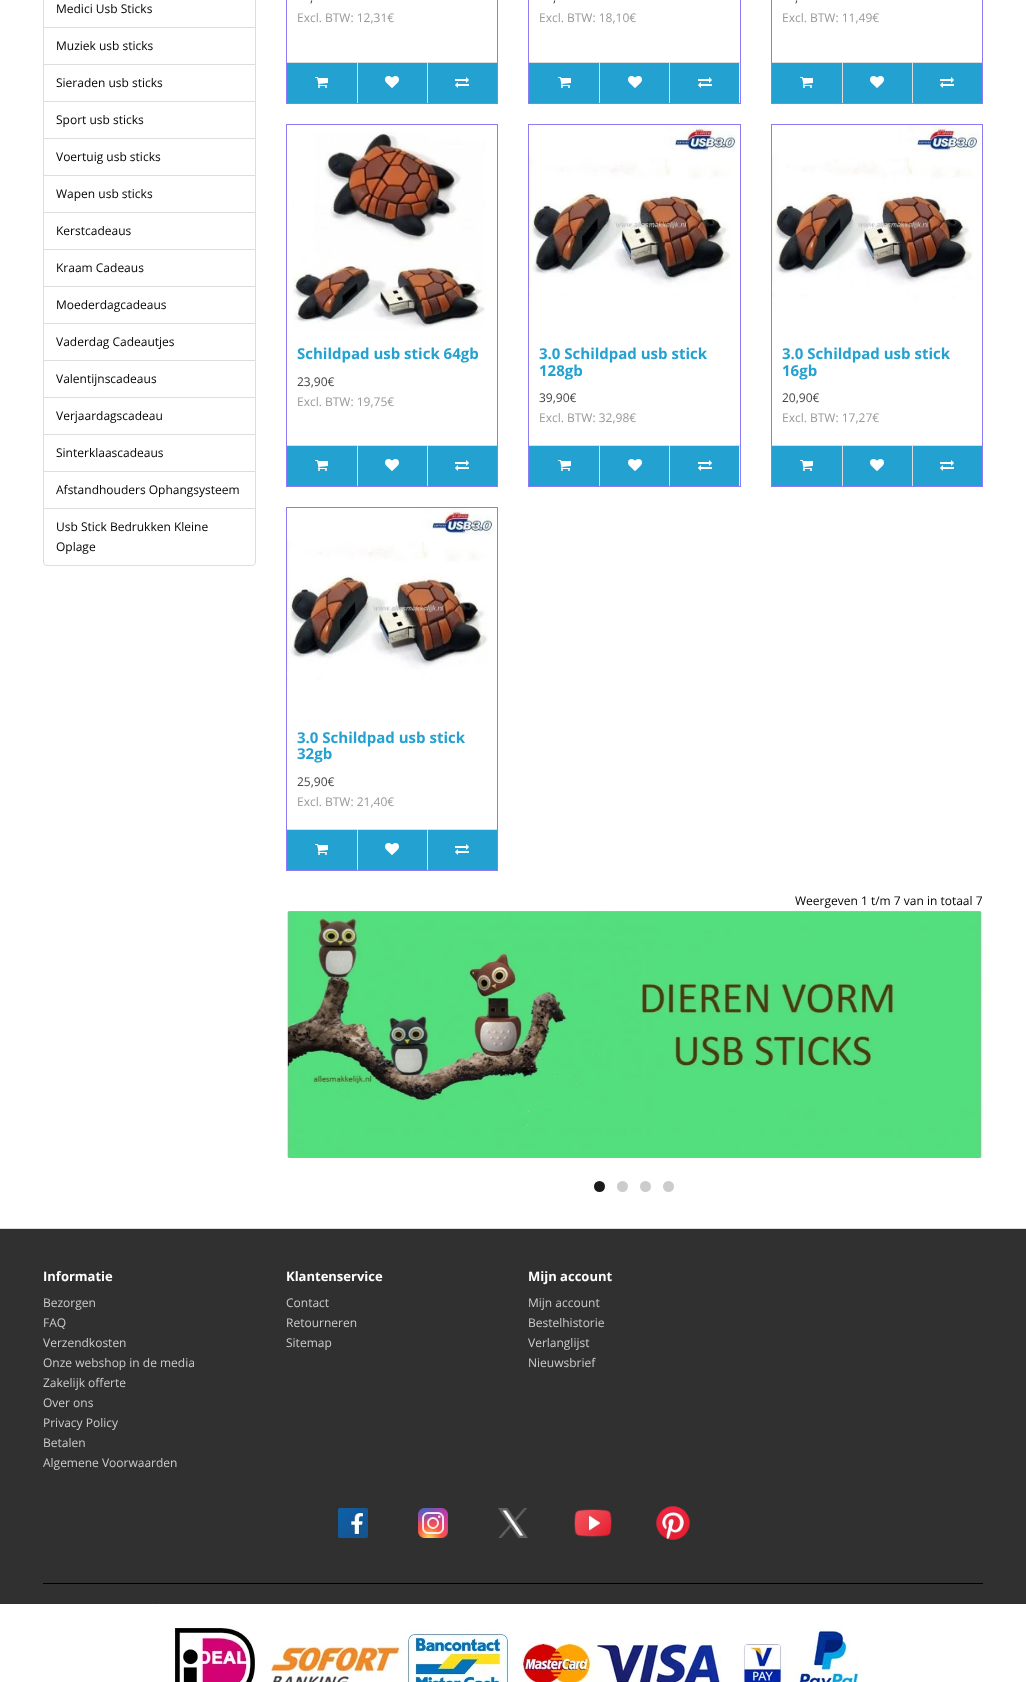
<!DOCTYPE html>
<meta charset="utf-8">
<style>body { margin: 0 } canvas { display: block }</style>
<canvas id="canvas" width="1026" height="1682"></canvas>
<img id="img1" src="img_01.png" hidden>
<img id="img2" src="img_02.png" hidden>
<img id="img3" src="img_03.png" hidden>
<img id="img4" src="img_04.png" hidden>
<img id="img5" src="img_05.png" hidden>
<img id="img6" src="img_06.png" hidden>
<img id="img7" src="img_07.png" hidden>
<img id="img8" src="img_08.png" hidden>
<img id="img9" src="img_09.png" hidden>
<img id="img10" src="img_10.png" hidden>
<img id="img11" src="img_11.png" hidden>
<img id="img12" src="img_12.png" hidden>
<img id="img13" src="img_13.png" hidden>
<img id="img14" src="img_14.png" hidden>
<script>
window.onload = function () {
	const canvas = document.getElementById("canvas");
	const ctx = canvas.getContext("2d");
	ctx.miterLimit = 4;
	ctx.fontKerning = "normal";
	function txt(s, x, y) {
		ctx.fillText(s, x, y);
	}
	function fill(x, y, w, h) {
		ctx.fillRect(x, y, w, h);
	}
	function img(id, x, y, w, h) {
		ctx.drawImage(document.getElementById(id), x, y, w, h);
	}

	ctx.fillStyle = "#FFFFFF";
	fill(0, 0, 1026, 1682);
	ctx.strokeStyle = "#DDDDDD";
	ctx.strokeRect(43.5, -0.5, 212, 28);
	ctx.strokeRect(43.5, 27.5, 212, 37);
	ctx.strokeRect(43.5, 64.5, 212, 37);
	ctx.strokeRect(43.5, 101.5, 212, 37);
	ctx.strokeRect(43.5, 138.5, 212, 37);
	ctx.strokeRect(43.5, 175.5, 212, 37);
	ctx.strokeRect(43.5, 212.5, 212, 37);
	ctx.strokeRect(43.5, 249.5, 212, 37);
	ctx.strokeRect(43.5, 286.5, 212, 37);
	ctx.strokeRect(43.5, 323.5, 212, 37);
	ctx.strokeRect(43.5, 360.5, 212, 37);
	ctx.strokeRect(43.5, 397.5, 212, 37);
	ctx.strokeRect(43.5, 434.5, 212, 37);
	ctx.strokeRect(43.5, 471.5, 212, 37);
	ctx.beginPath();
	ctx.roundRect(43.5, 508.5, 212, 57, [0, 0, 3.5, 3.5]);
	ctx.fill();
	ctx.stroke();
	ctx.strokeStyle = "#8B7BF4";
	ctx.strokeRect(286.5, -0.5, 211, 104);
	ctx.fillStyle = "#DDDDDD";
	fill(287, 62, 210, 1);
	ctx.fillStyle = "#23A1D1";
	fill(287, 63, 70, 40);
	img("img1", 315, 77, 13, 11);
	fill(358, 63, 69, 40);
	ctx.fillStyle = "#DDDDDD";
	fill(357, 63, 1, 40);
	img("img2", 385, 76, 14, 12);
	ctx.fillStyle = "#23A1D1";
	fill(428, 63, 69, 40);
	ctx.fillStyle = "#DDDDDD";
	fill(427, 63, 1, 40);
	img("img3", 455, 77, 14, 11);
	ctx.strokeRect(528.5, -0.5, 212, 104);
	ctx.fillStyle = "#EEEEEE";
	fill(739, 63, 1, 40);
	ctx.fillStyle = "#DDDDDD";
	fill(529, 62, 211, 1);
	ctx.fillStyle = "#23A1D1";
	fill(529, 63, 70, 40);
	img("img1", 558, 77, 13, 11);
	fill(600, 63, 69, 40);
	ctx.fillStyle = "#DDDDDD";
	fill(599, 63, 1, 40);
	img("img2", 628, 76, 14, 12);
	ctx.fillStyle = "#23A1D1";
	fill(670, 63, 69, 40);
	ctx.fillStyle = "#DDDDDD";
	fill(669, 63, 1, 40);
	img("img3", 698, 77, 14, 11);
	ctx.strokeRect(771.5, -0.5, 211, 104);
	fill(772, 62, 210, 1);
	ctx.fillStyle = "#23A1D1";
	fill(772, 63, 70, 40);
	img("img1", 800, 77, 13, 11);
	fill(843, 63, 69, 40);
	ctx.fillStyle = "#DDDDDD";
	fill(842, 63, 1, 40);
	img("img2", 870, 76, 14, 12);
	ctx.fillStyle = "#23A1D1";
	fill(913, 63, 69, 40);
	ctx.fillStyle = "#DDDDDD";
	fill(912, 63, 1, 40);
	img("img3", 940, 77, 14, 11);
	ctx.strokeRect(286.5, 124.5, 211, 362);
	img("img4", 292, 132, 193, 198);
	fill(287, 445, 210, 1);
	ctx.fillStyle = "#23A1D1";
	fill(287, 446, 70, 40);
	img("img1", 315, 460, 13, 11);
	fill(358, 446, 69, 40);
	ctx.fillStyle = "#DDDDDD";
	fill(357, 446, 1, 40);
	img("img2", 385, 459, 14, 12);
	ctx.fillStyle = "#23A1D1";
	fill(428, 446, 69, 40);
	ctx.fillStyle = "#DDDDDD";
	fill(427, 446, 1, 40);
	img("img3", 455, 460, 14, 11);
	ctx.strokeRect(528.5, 124.5, 212, 362);
	img("img5", 529, 125, 208, 172);
	ctx.fillStyle = "#EEEEEE";
	fill(739, 446, 1, 40);
	ctx.fillStyle = "#DDDDDD";
	fill(529, 445, 211, 1);
	ctx.fillStyle = "#23A1D1";
	fill(529, 446, 70, 40);
	img("img1", 558, 460, 13, 11);
	fill(600, 446, 69, 40);
	ctx.fillStyle = "#DDDDDD";
	fill(599, 446, 1, 40);
	img("img2", 628, 459, 14, 12);
	ctx.fillStyle = "#23A1D1";
	fill(670, 446, 69, 40);
	ctx.fillStyle = "#DDDDDD";
	fill(669, 446, 1, 40);
	img("img3", 698, 460, 14, 11);
	ctx.strokeRect(771.5, 124.5, 211, 362);
	img("img6", 772, 125, 210, 180);
	fill(772, 445, 210, 1);
	ctx.fillStyle = "#23A1D1";
	fill(772, 446, 70, 40);
	img("img1", 800, 460, 13, 11);
	fill(843, 446, 69, 40);
	ctx.fillStyle = "#DDDDDD";
	fill(842, 446, 1, 40);
	img("img2", 870, 459, 14, 12);
	ctx.fillStyle = "#23A1D1";
	fill(913, 446, 69, 40);
	ctx.fillStyle = "#DDDDDD";
	fill(912, 446, 1, 40);
	img("img3", 940, 460, 14, 11);
	ctx.strokeRect(286.5, 507.5, 211, 363);
	img("img7", 287, 508, 207, 173);
	fill(287, 829, 210, 1);
	ctx.fillStyle = "#23A1D1";
	fill(287, 830, 70, 40);
	img("img1", 315, 844, 13, 11);
	fill(358, 830, 69, 40);
	ctx.fillStyle = "#DDDDDD";
	fill(357, 830, 1, 40);
	img("img2", 385, 843, 14, 12);
	ctx.fillStyle = "#23A1D1";
	fill(428, 830, 69, 40);
	ctx.fillStyle = "#DDDDDD";
	fill(427, 830, 1, 40);
	img("img3", 455, 844, 14, 11);
	img("img8", 286, 911, 697, 247);
	ctx.fillStyle = "#1A1A1A";
	ctx.beginPath();
	ctx.arc(599.5, 1186.5, 5.5, 0, Math.PI * 2);
	ctx.fill();
	ctx.fillStyle = "#CCCCCC";
	ctx.beginPath();
	ctx.arc(622.5, 1186.5, 5.5, 0, Math.PI * 2);
	ctx.fill();
	ctx.beginPath();
	ctx.arc(645.5, 1186.5, 5.5, 0, Math.PI * 2);
	ctx.fill();
	ctx.beginPath();
	ctx.arc(668.5, 1186.5, 5.5, 0, Math.PI * 2);
	ctx.fill();
	ctx.fillStyle = "#303030";
	fill(0, 1229, 1026, 375);
	ctx.fillStyle = "#DDDDDD";
	fill(0, 1228, 1026, 1);
	img("img9", 338, 1508, 30, 30);
	img("img10", 418, 1508, 30, 30);
	img("img11", 498, 1508, 30, 30);
	img("img12", 574, 1509, 38, 28);
	img("img13", 656, 1506, 34, 34);
	ctx.fillStyle = "#000000";
	fill(43, 1583, 940, 1);
	img("img14", 154, 1604, 705, 78);
	ctx.font = "12px Open Sans";
	txt("Medici Usb Sticks", 56, 13);
	txt("Muziek usb sticks", 56, 50);
	txt("Sieraden usb sticks", 56, 87);
	txt("Sport usb sticks", 56, 124);
	txt("Voertuig usb sticks", 56, 161);
	txt("Wapen usb sticks", 56, 198);
	txt("Kerstcadeaus", 56, 235);
	txt("Kraam Cadeaus", 56, 272);
	txt("Moederdagcadeaus", 56, 309);
	txt("Vaderdag Cadeautjes", 56, 346);
	txt("Valentijnscadeaus", 56, 383);
	txt("Verjaardagscadeau", 56, 420);
	txt("Sinterklaascadeaus", 56, 457);
	txt("Afstandhouders Ophangsysteem", 56, 494);
	txt("Usb Stick Bedrukken Kleine", 56, 531);
	txt("Oplage", 56, 551);
	ctx.fillStyle = "#444444";
	txt(",", 310, 2);
	ctx.fillStyle = "#999999";
	txt("Excl. BTW: 12,31€", 297, 22);
	ctx.fillStyle = "#444444";
	txt(",", 553, 2);
	ctx.fillStyle = "#999999";
	txt("Excl. BTW: 18,10€", 539, 22);
	ctx.fillStyle = "#444444";
	txt(",", 795, 2);
	ctx.fillStyle = "#999999";
	txt("Excl. BTW: 11,49€", 782, 22);
	ctx.font = "bold 15px Open Sans";
	ctx.fillStyle = "#23A1D1";
	txt("Schildpad usb stick 64gb", 297, 359);
	ctx.font = "12px Open Sans";
	ctx.fillStyle = "#444444";
	txt("23,90€", 297, 386);
	ctx.fillStyle = "#999999";
	txt("Excl. BTW: 19,75€", 297, 406);
	ctx.font = "bold 15px Open Sans";
	ctx.fillStyle = "#23A1D1";
	txt("3.0 Schildpad usb stick", 539, 359);
	txt("128gb", 539, 376);
	ctx.font = "12px Open Sans";
	ctx.fillStyle = "#444444";
	txt("39,90€", 539, 402);
	ctx.fillStyle = "#999999";
	txt("Excl. BTW: 32,98€", 539, 422);
	ctx.font = "bold 15px Open Sans";
	ctx.fillStyle = "#23A1D1";
	txt("3.0 Schildpad usb stick", 782, 359);
	txt("16gb", 782, 376);
	ctx.font = "12px Open Sans";
	ctx.fillStyle = "#444444";
	txt("20,90€", 782, 402);
	ctx.fillStyle = "#999999";
	txt("Excl. BTW: 17,27€", 782, 422);
	ctx.font = "bold 15px Open Sans";
	ctx.fillStyle = "#23A1D1";
	txt("3.0 Schildpad usb stick", 297, 743);
	txt("32gb", 297, 759);
	ctx.font = "12px Open Sans";
	ctx.fillStyle = "#444444";
	txt("25,90€", 297, 786);
	ctx.fillStyle = "#999999";
	txt("Excl. BTW: 21,40€", 297, 806);
	ctx.fillStyle = "#000000";
	txt("Weergeven 1 t/m 7 van in totaal 7", 795, 905);
	ctx.font = "bold 13px Open Sans";
	ctx.fillStyle = "#FFFFFF";
	txt("Informatie", 43, 1281);
	ctx.font = "12px Open Sans";
	ctx.fillStyle = "#CCCCCC";
	txt("Bezorgen", 43, 1307);
	txt("FAQ", 43, 1327);
	txt("Verzendkosten", 43, 1347);
	txt("Onze webshop in de media", 43, 1367);
	txt("Zakelijk offerte", 43, 1387);
	txt("Over ons", 43, 1407);
	txt("Privacy Policy", 43, 1427);
	txt("Betalen", 43, 1447);
	txt("Algemene Voorwaarden", 43, 1467);
	ctx.font = "bold 13px Open Sans";
	ctx.fillStyle = "#FFFFFF";
	txt("Klantenservice", 286, 1281);
	ctx.font = "12px Open Sans";
	ctx.fillStyle = "#CCCCCC";
	txt("Contact", 286, 1307);
	txt("Retourneren", 286, 1327);
	txt("Sitemap", 286, 1347);
	ctx.font = "bold 13px Open Sans";
	ctx.fillStyle = "#FFFFFF";
	txt("Mijn account", 528, 1281);
	ctx.font = "12px Open Sans";
	ctx.fillStyle = "#CCCCCC";
	txt("Mijn account", 528, 1307);
	txt("Bestelhistorie", 528, 1327);
	txt("Verlanglijst", 528, 1347);
	txt("Nieuwsbrief", 528, 1367);
};
</script>
